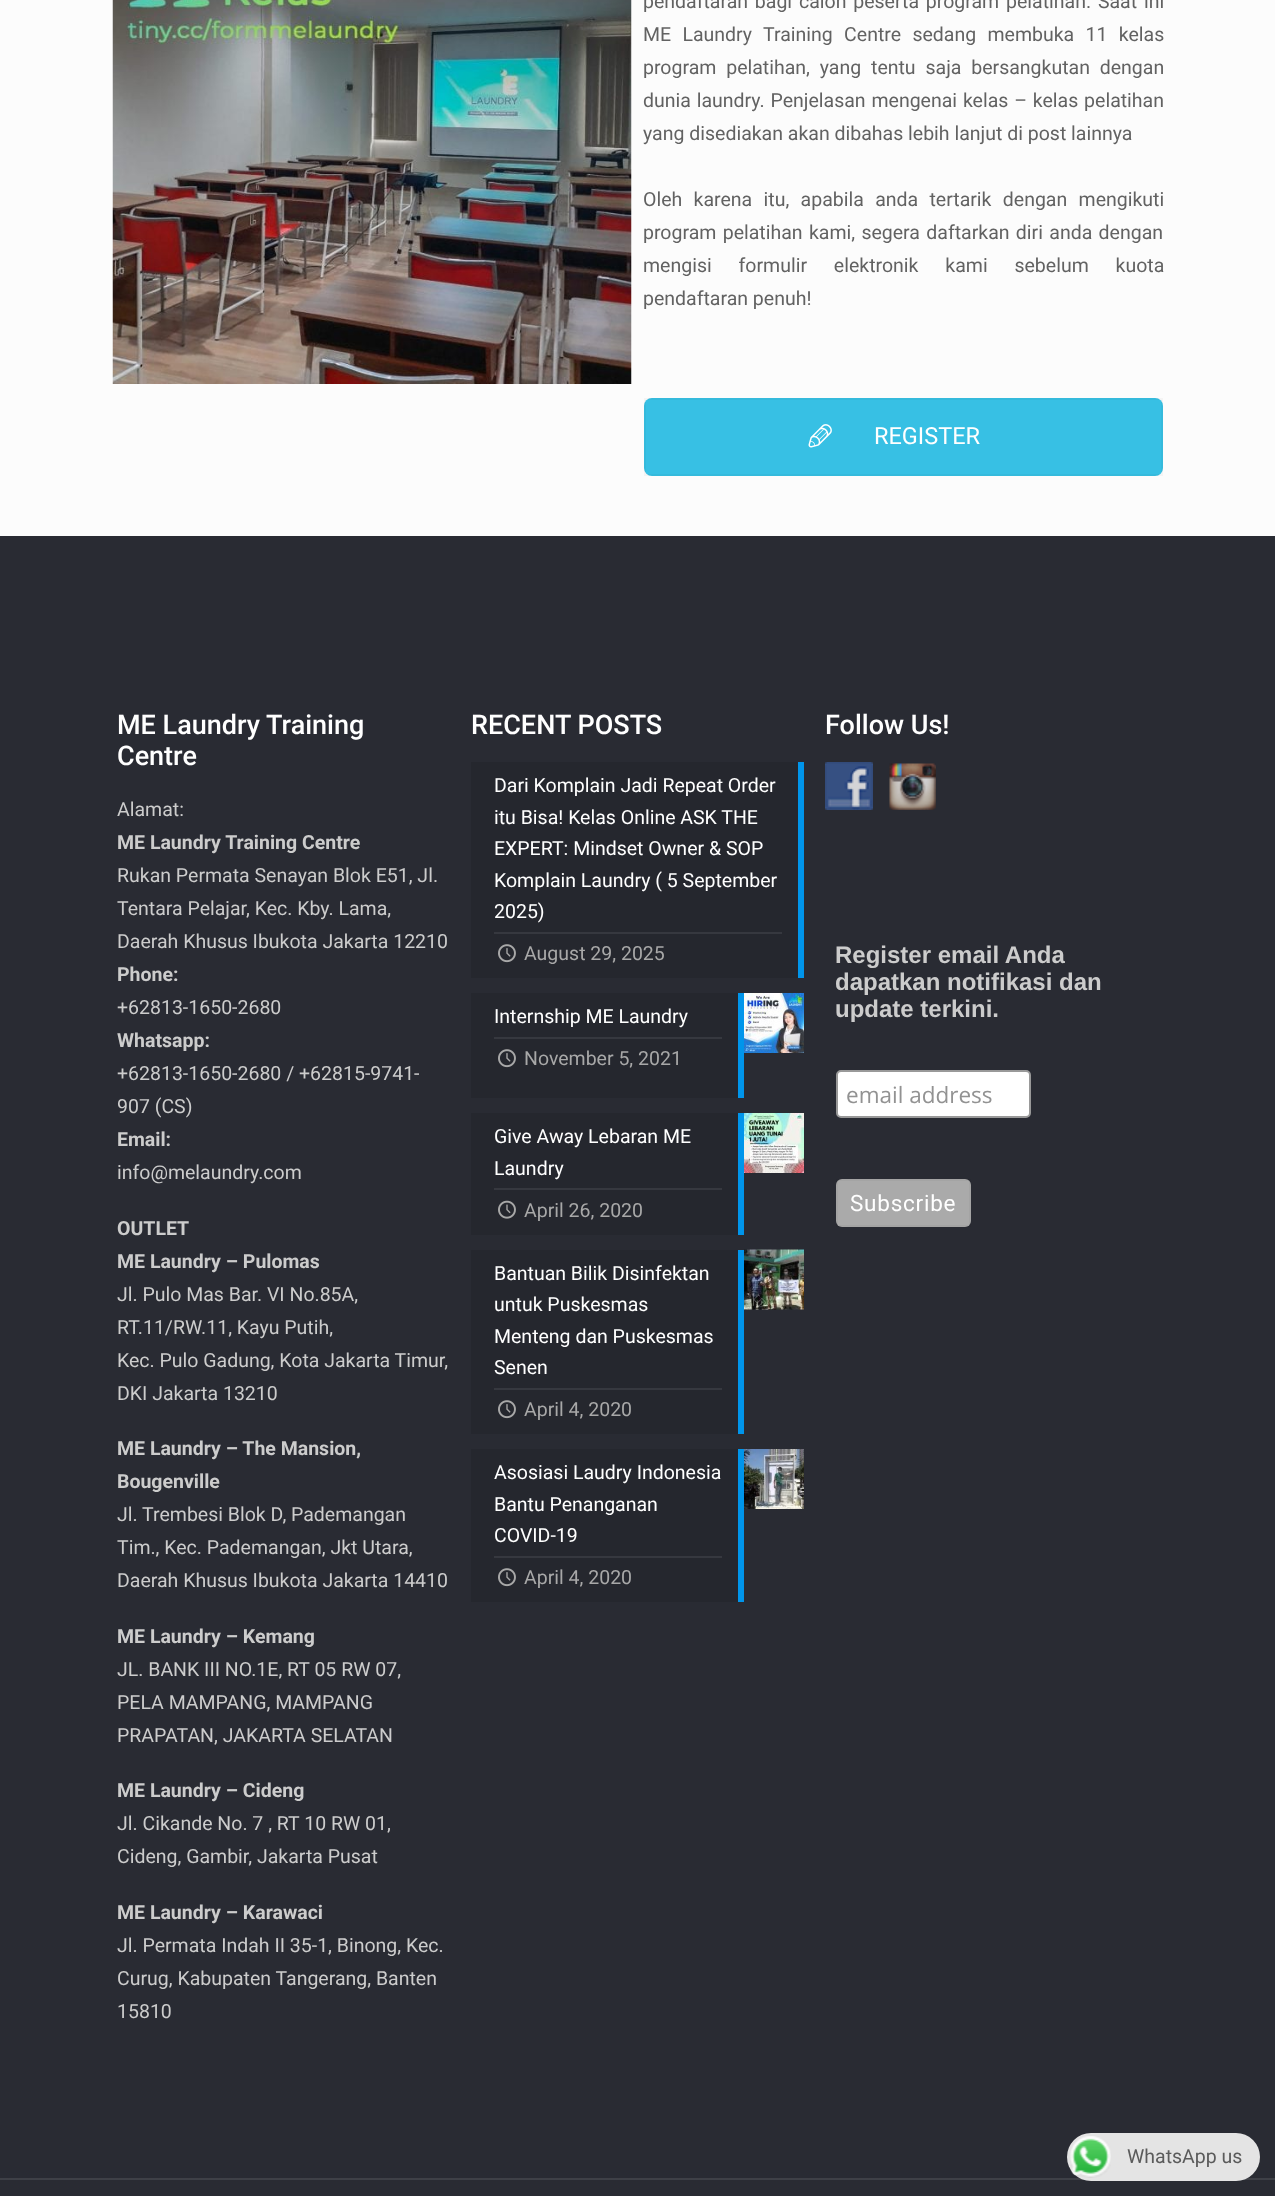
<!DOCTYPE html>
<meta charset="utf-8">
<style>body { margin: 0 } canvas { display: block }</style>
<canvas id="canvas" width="1275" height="2196"></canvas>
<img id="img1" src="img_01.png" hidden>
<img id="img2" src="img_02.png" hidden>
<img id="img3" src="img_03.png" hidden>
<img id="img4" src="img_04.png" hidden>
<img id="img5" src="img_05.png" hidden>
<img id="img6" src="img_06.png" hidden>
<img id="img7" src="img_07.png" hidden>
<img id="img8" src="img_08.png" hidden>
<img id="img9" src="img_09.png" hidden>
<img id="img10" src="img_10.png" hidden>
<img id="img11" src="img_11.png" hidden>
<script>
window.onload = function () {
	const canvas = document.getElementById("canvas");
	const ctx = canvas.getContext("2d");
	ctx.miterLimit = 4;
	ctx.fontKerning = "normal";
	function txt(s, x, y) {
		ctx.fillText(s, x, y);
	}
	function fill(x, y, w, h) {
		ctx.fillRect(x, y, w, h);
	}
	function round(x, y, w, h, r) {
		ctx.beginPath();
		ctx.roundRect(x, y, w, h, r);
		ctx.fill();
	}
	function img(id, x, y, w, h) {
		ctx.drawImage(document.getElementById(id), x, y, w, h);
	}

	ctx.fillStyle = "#FCFCFC";
	fill(0, 0, 1275, 2196);
	img("img1", 112, 0, 520, 384);
	ctx.fillStyle = "#37C0E4";
	round(644, 398, 519, 78, 8);
	ctx.strokeStyle = "rgba(0, 0, 0, 0.03)";
	ctx.lineWidth = 2;
	ctx.strokeRect(645, 399, 517, 76);
	img("img2", 808, 424, 24, 24);
	ctx.fillStyle = "#292B33";
	fill(0, 536, 1275, 1660);
	ctx.fillStyle = "#25272E";
	fill(471, 762, 327, 216);
	ctx.fillStyle = "#36383F";
	fill(494, 932, 288, 2);
	ctx.fillStyle = "#0095EB";
	fill(798, 762, 6, 216);
	img("img3", 498, 944, 18, 19);
	ctx.fillStyle = "#25272E";
	fill(471, 993, 267, 105);
	ctx.fillStyle = "#36383F";
	fill(494, 1037, 228, 2);
	ctx.fillStyle = "#0095EB";
	fill(738, 993, 6, 105);
	img("img3", 498, 1049, 18, 19);
	img("img4", 744, 993, 60, 60);
	ctx.fillStyle = "#25272E";
	fill(471, 1113, 267, 122);
	ctx.fillStyle = "#36383F";
	fill(494, 1188, 228, 2);
	ctx.fillStyle = "#0095EB";
	fill(738, 1113, 6, 122);
	img("img5", 498, 1200, 18, 19);
	img("img6", 744, 1113, 60, 60);
	ctx.fillStyle = "#25272E";
	fill(471, 1250, 267, 184);
	ctx.fillStyle = "#36383F";
	fill(494, 1388, 228, 2);
	ctx.fillStyle = "#0095EB";
	fill(738, 1250, 6, 184);
	img("img3", 498, 1400, 18, 19);
	img("img7", 744, 1249, 60, 61);
	ctx.fillStyle = "#25272E";
	fill(471, 1449, 267, 153);
	ctx.fillStyle = "#36383F";
	fill(494, 1556, 228, 2);
	ctx.fillStyle = "#0095EB";
	fill(738, 1449, 6, 153);
	img("img3", 498, 1568, 18, 19);
	img("img8", 744, 1449, 60, 60);
	img("img9", 825, 762, 48, 48);
	img("img10", 889, 763, 47, 47);
	ctx.fillStyle = "#FFFFFF";
	ctx.beginPath();
	ctx.roundRect(837, 1071, 193, 46, 4);
	ctx.fill();
	ctx.strokeStyle = "#999999";
	ctx.stroke();
	ctx.fillStyle = "#AAAAAA";
	round(836, 1179, 135, 48, 6);
	ctx.strokeStyle = "rgba(0, 0, 0, 0.03)";
	ctx.strokeRect(837, 1180, 133, 46);
	ctx.fillStyle = "#3E4047";
	fill(0, 2178, 1275, 2);
	ctx.fillStyle = "#E4E4E4";
	round(1067, 2133, 193, 48, 24);
	img("img11", 1070, 2136, 41, 42);
	ctx.wordSpacing = "2px";
	ctx.font = "19.5px Roboto";
	ctx.fillStyle = "#626262";
	txt("pendaftaran bagi calon peserta program pelatihan. Saat ini", 643, 8);
	ctx.wordSpacing = "6.5px";
	txt("ME Laundry Training Centre sedang membuka 11 kelas", 643, 41);
	ctx.wordSpacing = "5px";
	txt("program pelatihan, yang tentu saja bersangkutan dengan", 643, 74);
	ctx.wordSpacing = "1px";
	txt("dunia laundry. Penjelasan mengenai kelas – kelas pelatihan", 643, 107);
	ctx.wordSpacing = "0px";
	txt("yang disediakan akan dibahas lebih lanjut di post lainnya", 643, 140);
	ctx.wordSpacing = "6.5px";
	txt("Oleh karena itu, apabila anda tertarik dengan mengikuti", 643, 206);
	ctx.wordSpacing = "1.5px";
	txt("program pelatihan kami, segera daftarkan diri anda dengan", 643, 239);
	ctx.wordSpacing = "22px";
	txt("mengisi formulir elektronik kami sebelum kuota", 643, 272);
	ctx.wordSpacing = "0px";
	txt("pendaftaran penuh!", 643, 305);
	ctx.font = "23.5px Roboto";
	ctx.fillStyle = "#FFFFFF";
	txt("REGISTER", 874, 444);
	ctx.font = "500 27px Roboto";
	txt("ME Laundry Training", 117, 734);
	txt("Centre", 117, 765);
	ctx.font = "19.5px Roboto";
	ctx.fillStyle = "#CCCCCC";
	txt("Alamat:", 117, 816);
	ctx.font = "bold 19.5px Roboto";
	txt("ME Laundry Training Centre", 117, 849);
	ctx.font = "19.5px Roboto";
	txt("Rukan Permata Senayan Blok E51, Jl.", 117, 882);
	txt("Tentara Pelajar, Kec. Kby. Lama,", 117, 915);
	txt("Daerah Khusus Ibukota Jakarta 12210", 117, 948);
	ctx.font = "bold 19.5px Roboto";
	txt("Phone:", 117, 981);
	ctx.font = "19.5px Roboto";
	txt("+62813-1650-2680", 117, 1014);
	ctx.font = "bold 19.5px Roboto";
	txt("Whatsapp:", 117, 1047);
	ctx.font = "19.5px Roboto";
	txt("+62813-1650-2680 / +62815-9741-", 117, 1080);
	txt("907 (CS)", 117, 1113);
	ctx.font = "bold 19.5px Roboto";
	txt("Email:", 117, 1146);
	ctx.font = "19.5px Roboto";
	txt("info@melaundry.com", 117, 1179);
	ctx.font = "bold 19.5px Roboto";
	txt("OUTLET", 117, 1235);
	txt("ME Laundry – Pulomas", 117, 1268);
	ctx.font = "19.5px Roboto";
	txt("Jl. Pulo Mas Bar. VI No.85A,", 117, 1301);
	txt("RT.11/RW.11, Kayu Putih,", 117, 1334);
	txt("Kec. Pulo Gadung, Kota Jakarta Timur,", 117, 1367);
	txt("DKI Jakarta 13210", 117, 1400);
	ctx.font = "bold 19.5px Roboto";
	txt("ME Laundry – The Mansion,", 117, 1455);
	txt("Bougenville", 117, 1488);
	ctx.font = "19.5px Roboto";
	txt("Jl. Trembesi Blok D, Pademangan", 117, 1521);
	txt("Tim., Kec. Pademangan, Jkt Utara,", 117, 1554);
	txt("Daerah Khusus Ibukota Jakarta 14410", 117, 1587);
	ctx.font = "bold 19.5px Roboto";
	txt("ME Laundry – Kemang", 117, 1643);
	ctx.font = "19.5px Roboto";
	txt("JL. BANK III NO.1E, RT 05 RW 07,", 117, 1676);
	txt("PELA MAMPANG, MAMPANG", 117, 1709);
	txt("PRAPATAN, JAKARTA SELATAN", 117, 1742);
	ctx.font = "bold 19.5px Roboto";
	txt("ME Laundry – Cideng", 117, 1797);
	ctx.font = "19.5px Roboto";
	txt("Jl. Cikande No. 7 , RT 10 RW 01,", 117, 1830);
	txt("Cideng, Gambir, Jakarta Pusat", 117, 1863);
	ctx.font = "bold 19.5px Roboto";
	txt("ME Laundry – Karawaci", 117, 1919);
	ctx.font = "19.5px Roboto";
	txt("Jl. Permata Indah II 35-1, Binong, Kec.", 117, 1952);
	txt("Curug, Kabupaten Tangerang, Banten", 117, 1985);
	txt("15810", 117, 2018);
	ctx.font = "500 27px Roboto";
	ctx.fillStyle = "#FFFFFF";
	txt("RECENT POSTS", 471, 734);
	ctx.font = "19.5px Roboto";
	txt("Dari Komplain Jadi Repeat Order", 494, 792);
	txt("itu Bisa! Kelas Online ASK THE", 494, 824);
	txt("EXPERT: Mindset Owner & SOP", 494, 855);
	txt("Komplain Laundry ( 5 September", 494, 887);
	txt("2025)", 494, 918);
	ctx.fillStyle = "#A8A8A8";
	txt("August 29, 2025", 524, 960);
	ctx.fillStyle = "#FFFFFF";
	txt("Internship ME Laundry", 494, 1023);
	ctx.fillStyle = "#A8A8A8";
	txt("November 5, 2021", 524, 1065);
	ctx.fillStyle = "#FFFFFF";
	txt("Give Away Lebaran ME", 494, 1143);
	txt("Laundry", 494, 1175);
	ctx.fillStyle = "#A8A8A8";
	txt("April 26, 2020", 524, 1217);
	ctx.fillStyle = "#FFFFFF";
	txt("Bantuan Bilik Disinfektan", 494, 1280);
	txt("untuk Puskesmas", 494, 1311);
	txt("Menteng dan Puskesmas", 494, 1343);
	txt("Senen", 494, 1374);
	ctx.fillStyle = "#A8A8A8";
	txt("April 4, 2020", 524, 1416);
	ctx.fillStyle = "#FFFFFF";
	txt("Asosiasi Laudry Indonesia", 494, 1479);
	txt("Bantu Penanganan", 494, 1511);
	txt("COVID-19", 494, 1542);
	ctx.fillStyle = "#A8A8A8";
	txt("April 4, 2020", 524, 1584);
	ctx.font = "500 27px Roboto";
	ctx.fillStyle = "#FFFFFF";
	txt("Follow Us!", 825, 734);
	ctx.font = "bold 24px Liberation Sans";
	ctx.fillStyle = "#CCCCCC";
	txt("Register email Anda", 835, 963);
	txt("dapatkan notifikasi dan", 835, 990);
	txt("update terkini.", 835, 1017);
	ctx.font = "22.5px Open Sans";
	ctx.fillStyle = "#929292";
	txt("email address", 846, 1103);
	ctx.letterSpacing = "0.75px";
	ctx.font = "22.5px Roboto";
	ctx.fillStyle = "#FFFFFF";
	txt("Subscribe", 850, 1211);
	ctx.letterSpacing = "0px";
	ctx.font = "19.5px Roboto";
	ctx.fillStyle = "#5B5B5B";
	txt("WhatsApp us", 1127, 2163);
};
</script>
